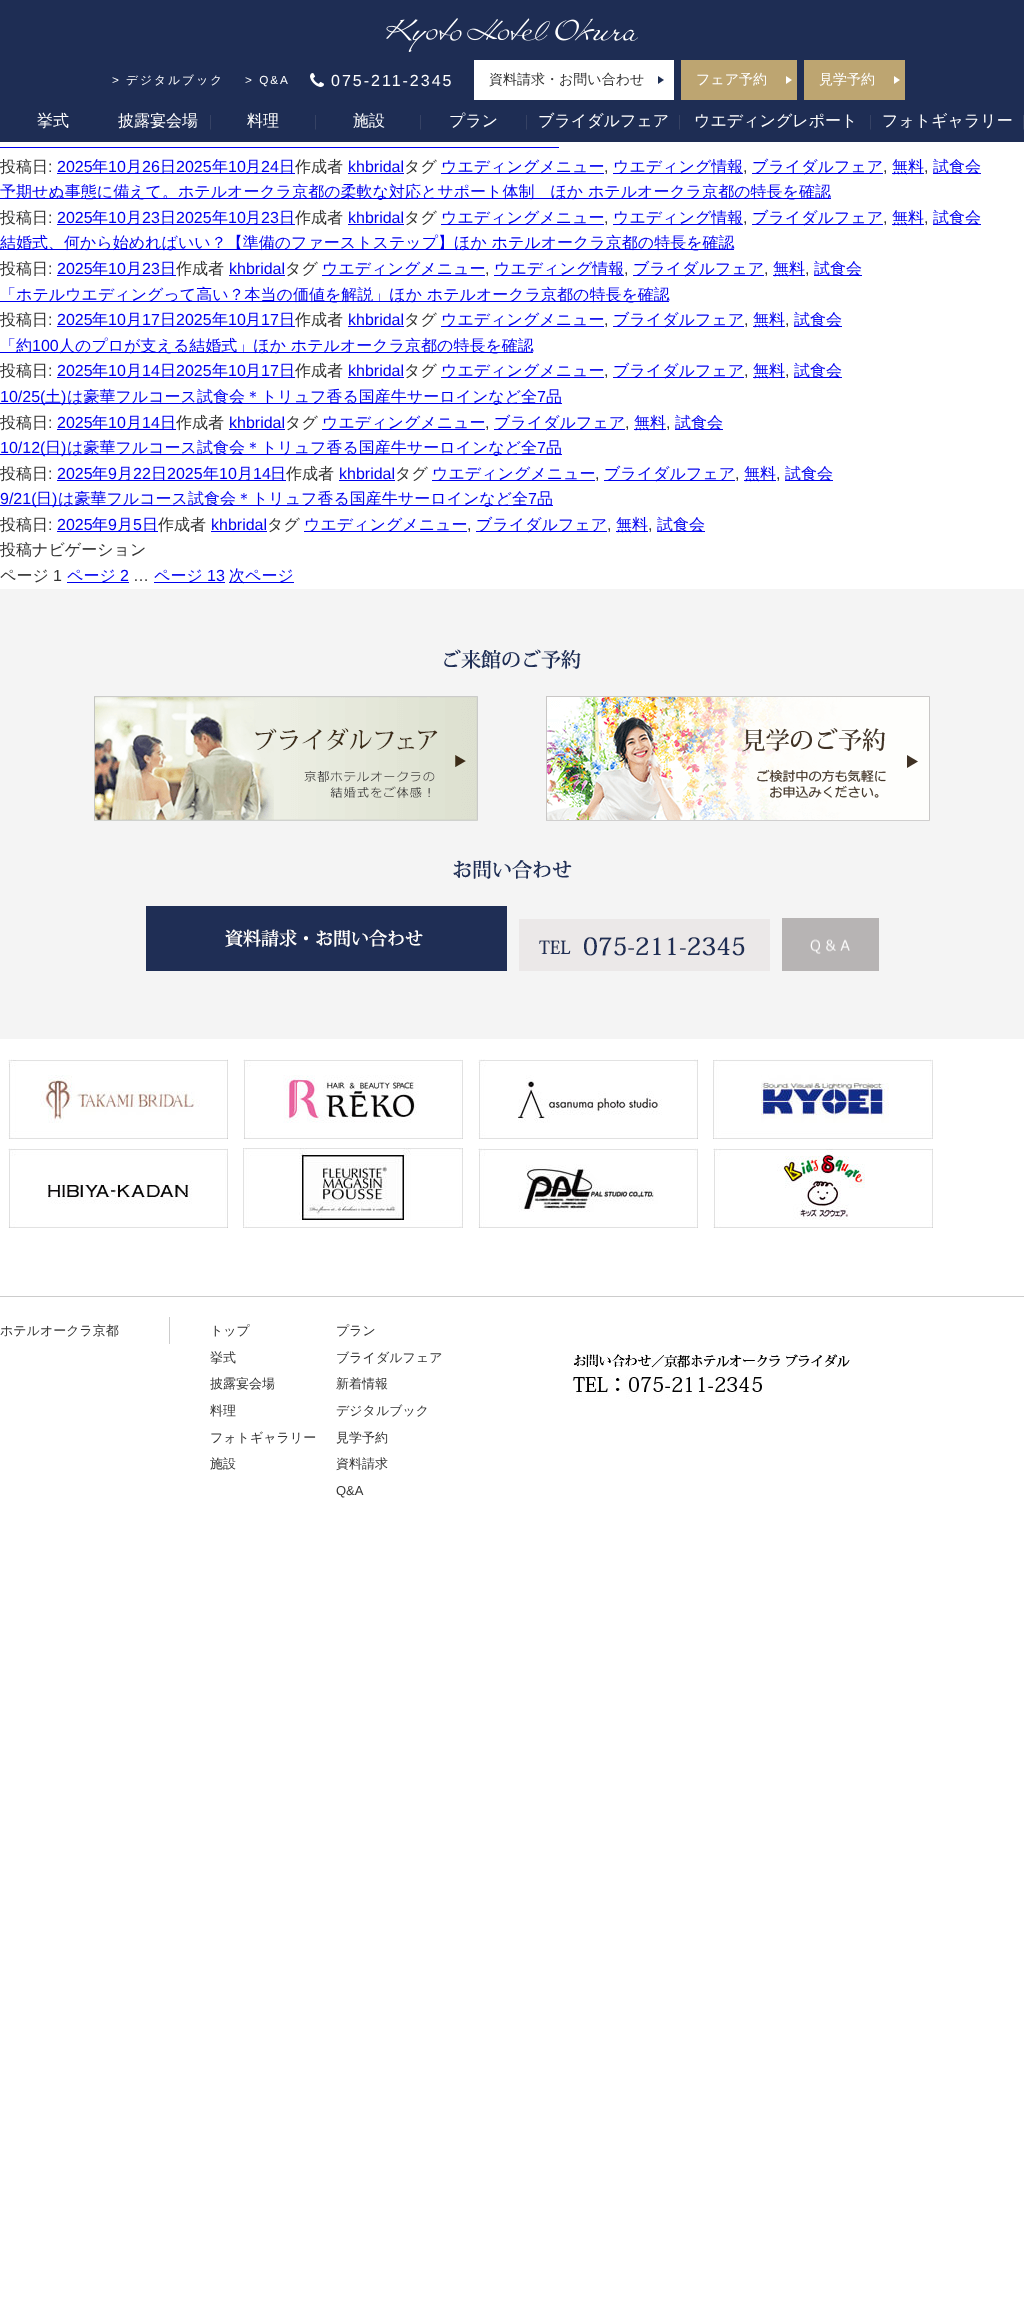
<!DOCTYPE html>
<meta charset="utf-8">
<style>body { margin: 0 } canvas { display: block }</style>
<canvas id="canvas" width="1024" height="2303"></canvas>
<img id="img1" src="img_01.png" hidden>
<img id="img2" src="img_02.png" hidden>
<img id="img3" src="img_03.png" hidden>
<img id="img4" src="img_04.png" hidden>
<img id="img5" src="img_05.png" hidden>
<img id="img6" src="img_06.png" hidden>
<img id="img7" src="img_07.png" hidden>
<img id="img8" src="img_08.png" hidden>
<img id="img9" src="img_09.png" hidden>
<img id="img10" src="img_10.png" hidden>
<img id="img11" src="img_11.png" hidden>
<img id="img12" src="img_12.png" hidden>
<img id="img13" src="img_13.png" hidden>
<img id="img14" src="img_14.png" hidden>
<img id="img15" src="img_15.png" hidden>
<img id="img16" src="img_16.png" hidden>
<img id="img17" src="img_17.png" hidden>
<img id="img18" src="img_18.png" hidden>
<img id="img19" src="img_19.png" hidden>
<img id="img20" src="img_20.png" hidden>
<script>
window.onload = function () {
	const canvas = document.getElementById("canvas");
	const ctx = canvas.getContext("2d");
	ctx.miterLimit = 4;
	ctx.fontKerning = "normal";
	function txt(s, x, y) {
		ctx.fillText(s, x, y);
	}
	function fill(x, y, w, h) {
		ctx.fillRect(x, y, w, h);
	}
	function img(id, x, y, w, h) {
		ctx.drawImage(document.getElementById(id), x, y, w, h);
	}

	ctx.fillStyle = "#FFFFFF";
	fill(0, 0, 1024, 2303);
	ctx.fillStyle = "#1E2D54";
	fill(0, 0, 1024, 142);
	img("img1", 386, 18, 252, 34);
	img("img2", 310, 73, 14, 14);
	ctx.fillStyle = "#FFFFFF";
	fill(474, 60, 200, 40);
	img("img3", 658, 76, 6, 8);
	ctx.fillStyle = "#BDA571";
	fill(681, 60, 116, 40);
	img("img4", 786, 76, 6, 8);
	fill(804, 60, 101, 40);
	img("img4", 894, 76, 6, 8);
	ctx.fillStyle = "#0000EE";
	fill(0, 147, 559, 1);
	fill(57, 173, 238, 1);
	fill(348, 173, 56, 1);
	fill(441, 173, 163, 1);
	fill(613, 173, 130, 1);
	fill(752, 173, 131, 1);
	fill(892, 173, 32, 1);
	fill(933, 173, 48, 1);
	fill(0, 198, 831, 1);
	fill(57, 224, 238, 1);
	fill(348, 224, 56, 1);
	fill(441, 224, 163, 1);
	fill(613, 224, 130, 1);
	fill(752, 224, 131, 1);
	fill(892, 224, 32, 1);
	fill(933, 224, 48, 1);
	fill(0, 249, 734, 1);
	fill(57, 275, 119, 1);
	fill(229, 275, 56, 1);
	fill(322, 275, 163, 1);
	fill(494, 275, 130, 1);
	fill(633, 275, 131, 1);
	fill(773, 275, 32, 1);
	fill(814, 275, 48, 1);
	fill(0, 301, 669, 1);
	fill(57, 326, 238, 1);
	fill(348, 326, 56, 1);
	fill(441, 326, 163, 1);
	fill(613, 326, 131, 1);
	fill(753, 326, 32, 1);
	fill(794, 326, 48, 1);
	fill(0, 352, 533, 1);
	fill(57, 377, 238, 1);
	fill(348, 377, 56, 1);
	fill(441, 377, 163, 1);
	fill(613, 377, 131, 1);
	fill(753, 377, 32, 1);
	fill(794, 377, 48, 1);
	fill(0, 403, 562, 1);
	fill(57, 429, 119, 1);
	fill(229, 429, 56, 1);
	fill(322, 429, 163, 1);
	fill(494, 429, 131, 1);
	fill(634, 429, 32, 1);
	fill(675, 429, 48, 1);
	fill(0, 454, 562, 1);
	fill(57, 480, 229, 1);
	fill(339, 480, 56, 1);
	fill(432, 480, 163, 1);
	fill(604, 480, 131, 1);
	fill(744, 480, 32, 1);
	fill(785, 480, 48, 1);
	fill(0, 505, 553, 1);
	fill(57, 531, 101, 1);
	fill(211, 531, 56, 1);
	fill(304, 531, 163, 1);
	fill(476, 531, 131, 1);
	fill(616, 531, 32, 1);
	fill(657, 531, 48, 1);
	fill(67, 582, 62, 1);
	fill(154, 582, 71, 1);
	fill(229, 582, 65, 1);
	ctx.fillStyle = "#F4F4F4";
	fill(0, 589, 1024, 450);
	img("img5", 444, 649, 137, 20);
	img("img6", 94, 696, 384, 125);
	img("img7", 546, 696, 384, 125);
	img("img8", 453, 860, 119, 19);
	img("img9", 146, 906, 361, 65);
	img("img10", 519, 919, 251, 52);
	img("img11", 782, 918, 97, 53);
	ctx.fillStyle = "#CCCCCC";
	fill(0, 1296, 1024, 1);
	img("img12", 8, 1059, 220, 80);
	img("img13", 243, 1059, 220, 80);
	img("img14", 478, 1059, 220, 80);
	img("img15", 713, 1059, 220, 80);
	img("img16", 8, 1148, 220, 80);
	img("img17", 243, 1148, 220, 80);
	img("img18", 478, 1148, 220, 80);
	img("img19", 713, 1148, 220, 80);
	fill(169, 1317, 1, 27);
	img("img20", 570, 1351, 280, 48);
	ctx.letterSpacing = "2px";
	ctx.font = "11.75px Liberation Sans";
	ctx.fillStyle = "#FFFFFF";
	txt(">", 112, 84);
	ctx.font = "500 11.75px WenQuanYi Zen Hei";
	txt("デジタルブック", 126, 84);
	ctx.font = "11.75px Liberation Sans";
	txt("> Q&A", 245, 84);
	ctx.font = "16px Liberation Sans";
	txt("075-211-2345", 331, 86);
	ctx.letterSpacing = "0px";
	ctx.font = "500 14px WenQuanYi Zen Hei";
	ctx.fillStyle = "#333333";
	txt("資料請求・お問い合わせ", 489, 84);
	ctx.fillStyle = "#FFFFFF";
	txt("フェア予約", 696, 84);
	txt("見学予約", 819, 84);
	ctx.font = "500 16px WenQuanYi Zen Hei";
	txt("挙式", 37, 126);
	txt("披露宴会場", 118, 126);
	ctx.font = "16px Liberation Serif";
	ctx.fillStyle = "#3E4969";
	txt("|", 209, 126);
	ctx.font = "500 16px WenQuanYi Zen Hei";
	ctx.fillStyle = "#FFFFFF";
	txt("料理", 247, 126);
	ctx.font = "16px Liberation Serif";
	ctx.fillStyle = "#3E4969";
	txt("|", 314, 126);
	ctx.font = "500 16px WenQuanYi Zen Hei";
	ctx.fillStyle = "#FFFFFF";
	txt("施設", 353, 126);
	ctx.font = "16px Liberation Serif";
	ctx.fillStyle = "#3E4969";
	txt("|", 419, 126);
	ctx.font = "500 16px WenQuanYi Zen Hei";
	ctx.fillStyle = "#FFFFFF";
	txt("プラン", 449, 126);
	ctx.font = "16px Liberation Serif";
	ctx.fillStyle = "#3E4969";
	txt("|", 525, 126);
	ctx.font = "500 16px WenQuanYi Zen Hei";
	ctx.fillStyle = "#FFFFFF";
	txt("ブライダルフェア", 538, 126);
	ctx.font = "16px Liberation Serif";
	ctx.fillStyle = "#3E4969";
	txt("|", 678, 126);
	ctx.font = "500 16px WenQuanYi Zen Hei";
	ctx.fillStyle = "#FFFFFF";
	txt("ウエディングレポート", 694, 126);
	ctx.font = "16px Liberation Serif";
	ctx.fillStyle = "#3E4969";
	txt("|", 869, 126);
	ctx.font = "500 16px WenQuanYi Zen Hei";
	ctx.fillStyle = "#FFFFFF";
	txt("フォトギャラリー", 882, 126);
	ctx.font = "16px Liberation Serif";
	ctx.fillStyle = "#3E4969";
	txt("|", 1022, 126);
	ctx.font = "500 16px WenQuanYi Zen Hei";
	ctx.fillStyle = "#333333";
	txt("投稿日", 0, 172);
	ctx.font = "16px Liberation Sans";
	txt(":", 48, 172);
	ctx.fillStyle = "#0000EE";
	txt("2025", 57, 172);
	ctx.font = "500 16px WenQuanYi Zen Hei";
	txt("年", 92, 172);
	ctx.font = "16px Liberation Sans";
	txt("10", 108, 172);
	ctx.font = "500 16px WenQuanYi Zen Hei";
	txt("月", 126, 172);
	ctx.font = "16px Liberation Sans";
	txt("26", 142, 172);
	ctx.font = "500 16px WenQuanYi Zen Hei";
	txt("日", 160, 172);
	ctx.font = "16px Liberation Sans";
	txt("2025", 176, 172);
	ctx.font = "500 16px WenQuanYi Zen Hei";
	txt("年", 212, 172);
	ctx.font = "16px Liberation Sans";
	txt("10", 228, 172);
	ctx.font = "500 16px WenQuanYi Zen Hei";
	txt("月", 245, 172);
	ctx.font = "16px Liberation Sans";
	txt("24", 261, 172);
	ctx.font = "500 16px WenQuanYi Zen Hei";
	txt("日", 279, 172);
	ctx.fillStyle = "#333333";
	txt("作成者", 295, 172);
	ctx.font = "16px Liberation Sans";
	ctx.fillStyle = "#0000EE";
	txt("khbridal", 348, 172);
	ctx.font = "500 16px WenQuanYi Zen Hei";
	ctx.fillStyle = "#333333";
	txt("タグ", 404, 172);
	ctx.fillStyle = "#0000EE";
	txt("ウエディングメニュー", 441, 172);
	txt("ウエディング情報", 613, 172);
	txt("ブライダルフェア", 752, 172);
	txt("無料", 892, 172);
	txt("試食会", 933, 172);
	ctx.font = "16px Liberation Sans";
	ctx.fillStyle = "#333333";
	txt(",", 604, 172);
	txt(",", 743, 172);
	txt(",", 883, 172);
	txt(",", 924, 172);
	ctx.font = "500 16px WenQuanYi Zen Hei";
	ctx.fillStyle = "#0000EE";
	txt("予期せぬ事態に備えて。ホテルオークラ京都の柔軟な対応とサポート体制　ほか ホテルオークラ京都の特長を確認", 0, 197);
	ctx.fillStyle = "#333333";
	txt("投稿日", 0, 223);
	ctx.font = "16px Liberation Sans";
	txt(":", 48, 223);
	ctx.fillStyle = "#0000EE";
	txt("2025", 57, 223);
	ctx.font = "500 16px WenQuanYi Zen Hei";
	txt("年", 92, 223);
	ctx.font = "16px Liberation Sans";
	txt("10", 108, 223);
	ctx.font = "500 16px WenQuanYi Zen Hei";
	txt("月", 126, 223);
	ctx.font = "16px Liberation Sans";
	txt("23", 142, 223);
	ctx.font = "500 16px WenQuanYi Zen Hei";
	txt("日", 160, 223);
	ctx.font = "16px Liberation Sans";
	txt("2025", 176, 223);
	ctx.font = "500 16px WenQuanYi Zen Hei";
	txt("年", 212, 223);
	ctx.font = "16px Liberation Sans";
	txt("10", 228, 223);
	ctx.font = "500 16px WenQuanYi Zen Hei";
	txt("月", 245, 223);
	ctx.font = "16px Liberation Sans";
	txt("23", 261, 223);
	ctx.font = "500 16px WenQuanYi Zen Hei";
	txt("日", 279, 223);
	ctx.fillStyle = "#333333";
	txt("作成者", 295, 223);
	ctx.font = "16px Liberation Sans";
	ctx.fillStyle = "#0000EE";
	txt("khbridal", 348, 223);
	ctx.font = "500 16px WenQuanYi Zen Hei";
	ctx.fillStyle = "#333333";
	txt("タグ", 404, 223);
	ctx.fillStyle = "#0000EE";
	txt("ウエディングメニュー", 441, 223);
	txt("ウエディング情報", 613, 223);
	txt("ブライダルフェア", 752, 223);
	txt("無料", 892, 223);
	txt("試食会", 933, 223);
	ctx.font = "16px Liberation Sans";
	ctx.fillStyle = "#333333";
	txt(",", 604, 223);
	txt(",", 743, 223);
	txt(",", 883, 223);
	txt(",", 924, 223);
	ctx.font = "500 16px WenQuanYi Zen Hei";
	ctx.fillStyle = "#0000EE";
	txt("結婚式、何から始めればいい？【準備のファーストステップ】ほか ホテルオークラ京都の特長を確認", 0, 248);
	ctx.fillStyle = "#333333";
	txt("投稿日", 0, 274);
	ctx.font = "16px Liberation Sans";
	txt(":", 48, 274);
	ctx.fillStyle = "#0000EE";
	txt("2025", 57, 274);
	ctx.font = "500 16px WenQuanYi Zen Hei";
	txt("年", 92, 274);
	ctx.font = "16px Liberation Sans";
	txt("10", 108, 274);
	ctx.font = "500 16px WenQuanYi Zen Hei";
	txt("月", 126, 274);
	ctx.font = "16px Liberation Sans";
	txt("23", 142, 274);
	ctx.font = "500 16px WenQuanYi Zen Hei";
	txt("日", 160, 274);
	ctx.fillStyle = "#333333";
	txt("作成者", 176, 274);
	ctx.font = "16px Liberation Sans";
	ctx.fillStyle = "#0000EE";
	txt("khbridal", 229, 274);
	ctx.font = "500 16px WenQuanYi Zen Hei";
	ctx.fillStyle = "#333333";
	txt("タグ", 285, 274);
	ctx.fillStyle = "#0000EE";
	txt("ウエディングメニュー", 322, 274);
	txt("ウエディング情報", 494, 274);
	txt("ブライダルフェア", 633, 274);
	txt("無料", 773, 274);
	txt("試食会", 814, 274);
	ctx.font = "16px Liberation Sans";
	ctx.fillStyle = "#333333";
	txt(",", 485, 274);
	txt(",", 624, 274);
	txt(",", 764, 274);
	txt(",", 805, 274);
	ctx.font = "500 16px WenQuanYi Zen Hei";
	ctx.fillStyle = "#0000EE";
	txt("「ホテルウエディングって高い？本当の価値を解説」ほか ホテルオークラ京都の特長を確認", 0, 300);
	ctx.fillStyle = "#333333";
	txt("投稿日", 0, 325);
	ctx.font = "16px Liberation Sans";
	txt(":", 48, 325);
	ctx.fillStyle = "#0000EE";
	txt("2025", 57, 325);
	ctx.font = "500 16px WenQuanYi Zen Hei";
	txt("年", 92, 325);
	ctx.font = "16px Liberation Sans";
	txt("10", 108, 325);
	ctx.font = "500 16px WenQuanYi Zen Hei";
	txt("月", 126, 325);
	ctx.font = "16px Liberation Sans";
	txt("17", 142, 325);
	ctx.font = "500 16px WenQuanYi Zen Hei";
	txt("日", 160, 325);
	ctx.font = "16px Liberation Sans";
	txt("2025", 176, 325);
	ctx.font = "500 16px WenQuanYi Zen Hei";
	txt("年", 212, 325);
	ctx.font = "16px Liberation Sans";
	txt("10", 228, 325);
	ctx.font = "500 16px WenQuanYi Zen Hei";
	txt("月", 245, 325);
	ctx.font = "16px Liberation Sans";
	txt("17", 261, 325);
	ctx.font = "500 16px WenQuanYi Zen Hei";
	txt("日", 279, 325);
	ctx.fillStyle = "#333333";
	txt("作成者", 295, 325);
	ctx.font = "16px Liberation Sans";
	ctx.fillStyle = "#0000EE";
	txt("khbridal", 348, 325);
	ctx.font = "500 16px WenQuanYi Zen Hei";
	ctx.fillStyle = "#333333";
	txt("タグ", 404, 325);
	ctx.fillStyle = "#0000EE";
	txt("ウエディングメニュー", 441, 325);
	txt("ブライダルフェア", 613, 325);
	txt("無料", 753, 325);
	txt("試食会", 794, 325);
	ctx.font = "16px Liberation Sans";
	ctx.fillStyle = "#333333";
	txt(",", 604, 325);
	txt(",", 744, 325);
	txt(",", 785, 325);
	ctx.font = "500 16px WenQuanYi Zen Hei";
	ctx.fillStyle = "#0000EE";
	txt("「約", 0, 351);
	ctx.font = "16px Liberation Sans";
	txt("100", 32, 351);
	ctx.font = "500 16px WenQuanYi Zen Hei";
	txt("人のプロが支える結婚式」ほか ホテルオークラ京都の特長を確認", 59, 351);
	ctx.fillStyle = "#333333";
	txt("投稿日", 0, 376);
	ctx.font = "16px Liberation Sans";
	txt(":", 48, 376);
	ctx.fillStyle = "#0000EE";
	txt("2025", 57, 376);
	ctx.font = "500 16px WenQuanYi Zen Hei";
	txt("年", 92, 376);
	ctx.font = "16px Liberation Sans";
	txt("10", 108, 376);
	ctx.font = "500 16px WenQuanYi Zen Hei";
	txt("月", 126, 376);
	ctx.font = "16px Liberation Sans";
	txt("14", 142, 376);
	ctx.font = "500 16px WenQuanYi Zen Hei";
	txt("日", 160, 376);
	ctx.font = "16px Liberation Sans";
	txt("2025", 176, 376);
	ctx.font = "500 16px WenQuanYi Zen Hei";
	txt("年", 212, 376);
	ctx.font = "16px Liberation Sans";
	txt("10", 228, 376);
	ctx.font = "500 16px WenQuanYi Zen Hei";
	txt("月", 245, 376);
	ctx.font = "16px Liberation Sans";
	txt("17", 261, 376);
	ctx.font = "500 16px WenQuanYi Zen Hei";
	txt("日", 279, 376);
	ctx.fillStyle = "#333333";
	txt("作成者", 295, 376);
	ctx.font = "16px Liberation Sans";
	ctx.fillStyle = "#0000EE";
	txt("khbridal", 348, 376);
	ctx.font = "500 16px WenQuanYi Zen Hei";
	ctx.fillStyle = "#333333";
	txt("タグ", 404, 376);
	ctx.fillStyle = "#0000EE";
	txt("ウエディングメニュー", 441, 376);
	txt("ブライダルフェア", 613, 376);
	txt("無料", 753, 376);
	txt("試食会", 794, 376);
	ctx.font = "16px Liberation Sans";
	ctx.fillStyle = "#333333";
	txt(",", 604, 376);
	txt(",", 744, 376);
	txt(",", 785, 376);
	ctx.fillStyle = "#0000EE";
	txt("10/25(", 0, 402);
	ctx.font = "500 16px WenQuanYi Zen Hei";
	txt("土", 45, 402);
	ctx.font = "16px Liberation Sans";
	txt(")", 61, 402);
	ctx.font = "500 16px WenQuanYi Zen Hei";
	txt("は豪華フルコース試食会＊トリュフ香る国産牛サーロインなど全", 67, 402);
	ctx.font = "16px Liberation Sans";
	txt("7", 537, 402);
	ctx.font = "500 16px WenQuanYi Zen Hei";
	txt("品", 546, 402);
	ctx.fillStyle = "#333333";
	txt("投稿日", 0, 428);
	ctx.font = "16px Liberation Sans";
	txt(":", 48, 428);
	ctx.fillStyle = "#0000EE";
	txt("2025", 57, 428);
	ctx.font = "500 16px WenQuanYi Zen Hei";
	txt("年", 92, 428);
	ctx.font = "16px Liberation Sans";
	txt("10", 108, 428);
	ctx.font = "500 16px WenQuanYi Zen Hei";
	txt("月", 126, 428);
	ctx.font = "16px Liberation Sans";
	txt("14", 142, 428);
	ctx.font = "500 16px WenQuanYi Zen Hei";
	txt("日", 160, 428);
	ctx.fillStyle = "#333333";
	txt("作成者", 176, 428);
	ctx.font = "16px Liberation Sans";
	ctx.fillStyle = "#0000EE";
	txt("khbridal", 229, 428);
	ctx.font = "500 16px WenQuanYi Zen Hei";
	ctx.fillStyle = "#333333";
	txt("タグ", 285, 428);
	ctx.fillStyle = "#0000EE";
	txt("ウエディングメニュー", 322, 428);
	txt("ブライダルフェア", 494, 428);
	txt("無料", 634, 428);
	txt("試食会", 675, 428);
	ctx.font = "16px Liberation Sans";
	ctx.fillStyle = "#333333";
	txt(",", 485, 428);
	txt(",", 625, 428);
	txt(",", 666, 428);
	ctx.fillStyle = "#0000EE";
	txt("10/12(", 0, 453);
	ctx.font = "500 16px WenQuanYi Zen Hei";
	txt("日", 45, 453);
	ctx.font = "16px Liberation Sans";
	txt(")", 61, 453);
	ctx.font = "500 16px WenQuanYi Zen Hei";
	txt("は豪華フルコース試食会＊トリュフ香る国産牛サーロインなど全", 67, 453);
	ctx.font = "16px Liberation Sans";
	txt("7", 537, 453);
	ctx.font = "500 16px WenQuanYi Zen Hei";
	txt("品", 546, 453);
	ctx.fillStyle = "#333333";
	txt("投稿日", 0, 479);
	ctx.font = "16px Liberation Sans";
	txt(":", 48, 479);
	ctx.fillStyle = "#0000EE";
	txt("2025", 57, 479);
	ctx.font = "500 16px WenQuanYi Zen Hei";
	txt("年", 92, 479);
	ctx.font = "16px Liberation Sans";
	txt("9", 108, 479);
	ctx.font = "500 16px WenQuanYi Zen Hei";
	txt("月", 117, 479);
	ctx.font = "16px Liberation Sans";
	txt("22", 133, 479);
	ctx.font = "500 16px WenQuanYi Zen Hei";
	txt("日", 151, 479);
	ctx.font = "16px Liberation Sans";
	txt("2025", 167, 479);
	ctx.font = "500 16px WenQuanYi Zen Hei";
	txt("年", 203, 479);
	ctx.font = "16px Liberation Sans";
	txt("10", 219, 479);
	ctx.font = "500 16px WenQuanYi Zen Hei";
	txt("月", 237, 479);
	ctx.font = "16px Liberation Sans";
	txt("14", 253, 479);
	ctx.font = "500 16px WenQuanYi Zen Hei";
	txt("日", 270, 479);
	ctx.fillStyle = "#333333";
	txt("作成者", 286, 479);
	ctx.font = "16px Liberation Sans";
	ctx.fillStyle = "#0000EE";
	txt("khbridal", 339, 479);
	ctx.font = "500 16px WenQuanYi Zen Hei";
	ctx.fillStyle = "#333333";
	txt("タグ", 395, 479);
	ctx.fillStyle = "#0000EE";
	txt("ウエディングメニュー", 432, 479);
	txt("ブライダルフェア", 604, 479);
	txt("無料", 744, 479);
	txt("試食会", 785, 479);
	ctx.font = "16px Liberation Sans";
	ctx.fillStyle = "#333333";
	txt(",", 595, 479);
	txt(",", 735, 479);
	txt(",", 776, 479);
	ctx.fillStyle = "#0000EE";
	txt("9/21(", 0, 504);
	ctx.font = "500 16px WenQuanYi Zen Hei";
	txt("日", 36, 504);
	ctx.font = "16px Liberation Sans";
	txt(")", 52, 504);
	ctx.font = "500 16px WenQuanYi Zen Hei";
	txt("は豪華フルコース試食会＊トリュフ香る国産牛サーロインなど全", 58, 504);
	ctx.font = "16px Liberation Sans";
	txt("7", 528, 504);
	ctx.font = "500 16px WenQuanYi Zen Hei";
	txt("品", 537, 504);
	ctx.fillStyle = "#333333";
	txt("投稿日", 0, 530);
	ctx.font = "16px Liberation Sans";
	txt(":", 48, 530);
	ctx.fillStyle = "#0000EE";
	txt("2025", 57, 530);
	ctx.font = "500 16px WenQuanYi Zen Hei";
	txt("年", 92, 530);
	ctx.font = "16px Liberation Sans";
	txt("9", 108, 530);
	ctx.font = "500 16px WenQuanYi Zen Hei";
	txt("月", 117, 530);
	ctx.font = "16px Liberation Sans";
	txt("5", 133, 530);
	ctx.font = "500 16px WenQuanYi Zen Hei";
	txt("日", 142, 530);
	ctx.fillStyle = "#333333";
	txt("作成者", 158, 530);
	ctx.font = "16px Liberation Sans";
	ctx.fillStyle = "#0000EE";
	txt("khbridal", 211, 530);
	ctx.font = "500 16px WenQuanYi Zen Hei";
	ctx.fillStyle = "#333333";
	txt("タグ", 267, 530);
	ctx.fillStyle = "#0000EE";
	txt("ウエディングメニュー", 304, 530);
	txt("ブライダルフェア", 476, 530);
	txt("無料", 616, 530);
	txt("試食会", 657, 530);
	ctx.font = "16px Liberation Sans";
	ctx.fillStyle = "#333333";
	txt(",", 467, 530);
	txt(",", 607, 530);
	txt(",", 648, 530);
	ctx.font = "500 16px WenQuanYi Zen Hei";
	txt("投稿ナビゲーション", 0, 555);
	txt("ページ", 0, 581);
	ctx.font = "16px Liberation Sans";
	txt("1", 53, 581);
	ctx.font = "500 16px WenQuanYi Zen Hei";
	ctx.fillStyle = "#0000EE";
	txt("ページ", 67, 581);
	ctx.font = "16px Liberation Sans";
	txt("2", 120, 581);
	ctx.fillStyle = "#333333";
	txt("…", 133, 581);
	ctx.font = "500 16px WenQuanYi Zen Hei";
	ctx.fillStyle = "#0000EE";
	txt("ページ", 154, 581);
	ctx.font = "16px Liberation Sans";
	txt("13", 207, 581);
	ctx.font = "500 16px WenQuanYi Zen Hei";
	txt("次ページ", 229, 581);
	ctx.font = "500 13px WenQuanYi Zen Hei";
	ctx.fillStyle = "#333333";
	txt("ホテルオークラ京都", 0, 1335);
	txt("トップ", 210, 1335);
	txt("挙式", 210, 1362);
	txt("披露宴会場", 210, 1388);
	txt("料理", 210, 1415);
	txt("フォトギャラリー", 210, 1442);
	txt("施設", 210, 1468);
	txt("プラン", 336, 1335);
	txt("ブライダルフェア", 336, 1362);
	txt("新着情報", 336, 1388);
	txt("デジタルブック", 336, 1415);
	txt("見学予約", 336, 1442);
	txt("資料請求", 336, 1468);
	ctx.font = "13px Liberation Sans";
	txt("Q&A", 336, 1495);
};
</script>
